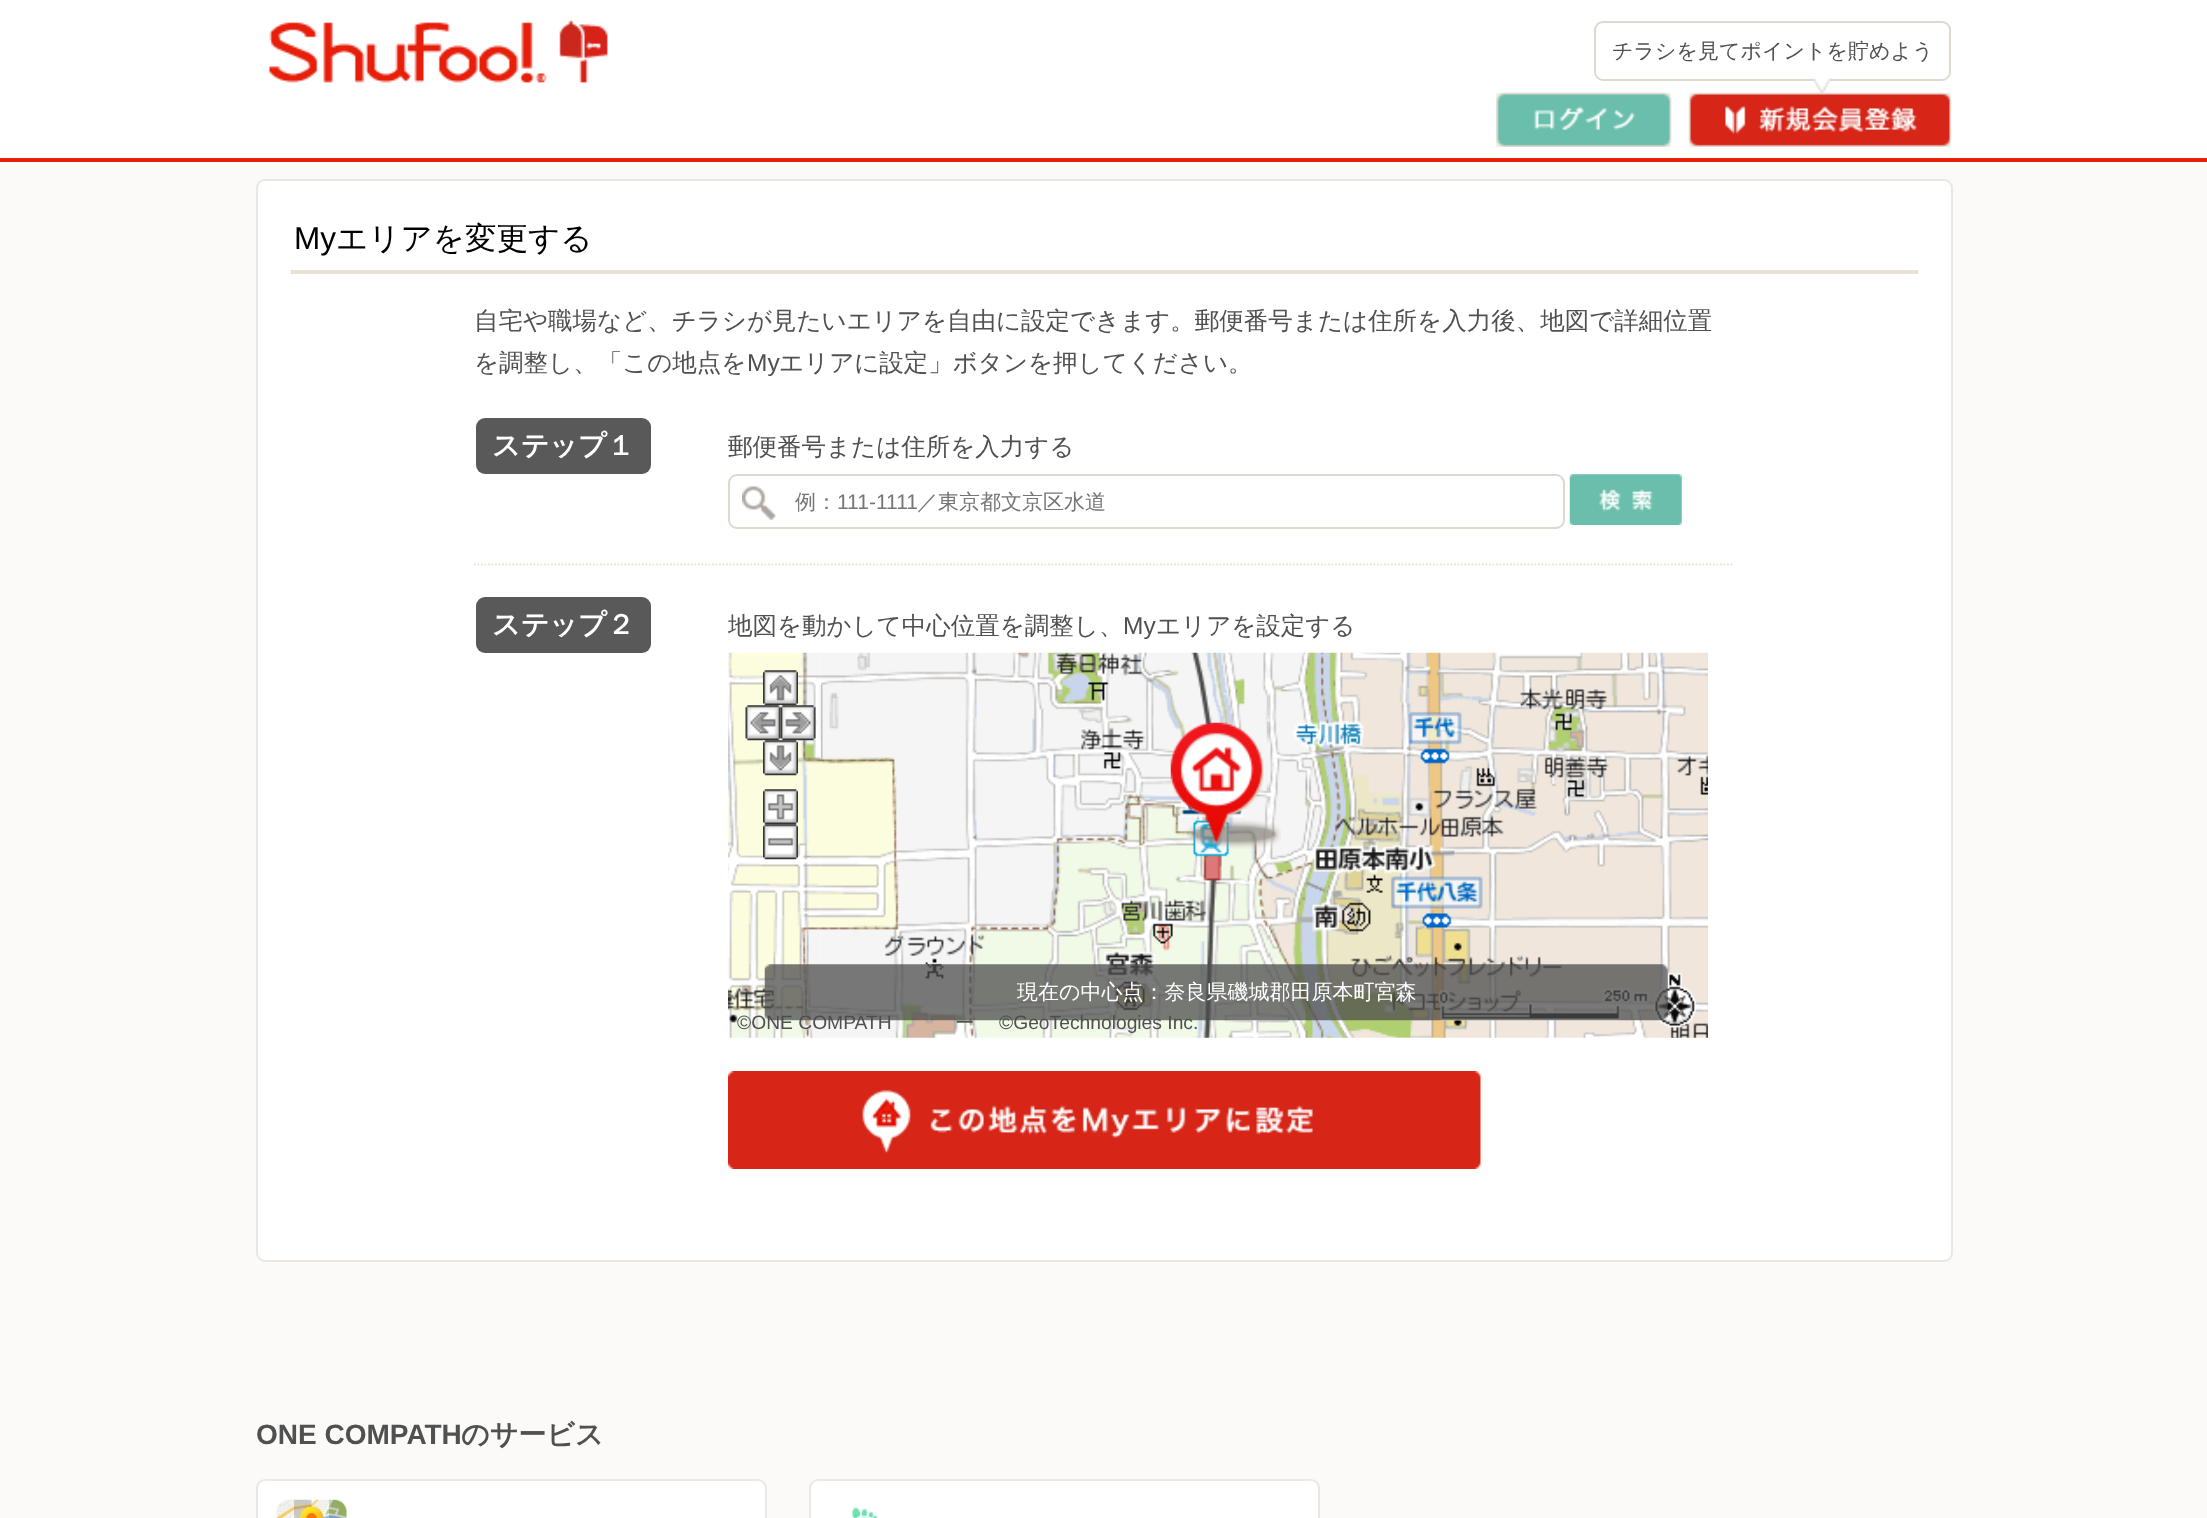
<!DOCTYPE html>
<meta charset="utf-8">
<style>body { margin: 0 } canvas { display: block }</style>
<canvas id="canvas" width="2207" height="1518"></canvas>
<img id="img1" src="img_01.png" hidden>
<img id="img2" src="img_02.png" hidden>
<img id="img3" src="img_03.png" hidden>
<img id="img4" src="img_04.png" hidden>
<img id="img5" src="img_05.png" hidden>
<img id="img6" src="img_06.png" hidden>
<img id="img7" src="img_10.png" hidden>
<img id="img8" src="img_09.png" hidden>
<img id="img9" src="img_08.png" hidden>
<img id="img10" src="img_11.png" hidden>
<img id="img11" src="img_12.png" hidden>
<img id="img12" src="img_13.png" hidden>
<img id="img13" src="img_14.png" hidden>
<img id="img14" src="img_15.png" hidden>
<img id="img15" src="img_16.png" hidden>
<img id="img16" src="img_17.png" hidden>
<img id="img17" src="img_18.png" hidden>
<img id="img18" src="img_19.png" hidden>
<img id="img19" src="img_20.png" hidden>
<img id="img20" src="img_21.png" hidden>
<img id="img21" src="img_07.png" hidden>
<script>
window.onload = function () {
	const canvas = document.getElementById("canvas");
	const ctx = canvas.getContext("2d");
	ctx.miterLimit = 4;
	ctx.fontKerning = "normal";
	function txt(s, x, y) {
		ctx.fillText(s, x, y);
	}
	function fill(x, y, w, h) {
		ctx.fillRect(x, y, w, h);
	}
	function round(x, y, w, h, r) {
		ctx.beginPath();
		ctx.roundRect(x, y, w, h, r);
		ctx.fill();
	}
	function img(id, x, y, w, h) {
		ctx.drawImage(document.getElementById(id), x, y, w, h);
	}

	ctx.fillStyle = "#FBFAF8";
	fill(0, 0, 2207, 1518);
	ctx.fillStyle = "#FFFFFF";
	fill(0, 0, 2207, 158);
	ctx.fillStyle = "#E61E0A";
	fill(0, 158, 2207, 4);
	img("img1", 269, 20, 340, 63);
	ctx.beginPath();
	ctx.roundRect(1595, 22, 355, 58, 8);
	ctx.strokeStyle = "#DED8D0";
	ctx.lineWidth = 2;
	ctx.stroke();
	img("img2", 1811, 78, 21, 15);
	ctx.fillStyle = "#F4F0EA";
	fill(1496, 93, 175, 54);
	img("img3", 1496, 92, 176, 55);
	fill(1689, 93, 262, 54);
	img("img4", 1688, 92, 264, 55);
	ctx.fillStyle = "#FFFFFF";
	ctx.beginPath();
	ctx.roundRect(257, 180, 1695, 1081, 8);
	ctx.fill();
	ctx.strokeStyle = "#EBE7E2";
	ctx.stroke();
	ctx.fillStyle = "#E9E1D5";
	fill(291, 270, 1627, 4);
	ctx.beginPath();
	ctx.moveTo(474, 564.5);
	ctx.lineTo(1734, 564.5);
	ctx.strokeStyle = "#E9E1D5";
	ctx.lineWidth = 1.8;
	ctx.setLineDash([1.75, 1.75]);
	ctx.stroke();
	ctx.fillStyle = "#595959";
	round(476, 418, 175, 56, 9);
	ctx.beginPath();
	ctx.roundRect(729, 475, 835, 53, 8);
	ctx.strokeStyle = "#DED8D0";
	ctx.lineWidth = 2;
	ctx.setLineDash([]);
	ctx.stroke();
	img("img5", 742, 486, 34, 34);
	img("img6", 1569, 474, 113, 51);
	round(476, 597, 175, 56, 9);
	img("img7", 1268, 652, 440, 386);
	img("img8", 820, 652, 449, 386);
	img("img9", 728, 652, 93, 386);
	img("img10", 1170, 722, 111, 127);
	img("img11", 763, 670, 35, 36);
	img("img12", 745, 705, 36, 36);
	img("img13", 780, 705, 36, 36);
	img("img14", 763, 740, 35, 36);
	img("img15", 763, 789, 35, 36);
	img("img16", 763, 824, 35, 36);
	img("img17", 1438, 972, 259, 56);
	img("img18", 728, 1071, 753, 98);
	ctx.fillStyle = "#FFFFFF";
	ctx.beginPath();
	ctx.roundRect(257, 1480, 509, 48, 8);
	ctx.fill();
	ctx.strokeStyle = "#EBE7E2";
	ctx.stroke();
	img("img19", 276, 1499, 71, 19);
	ctx.beginPath();
	ctx.roundRect(810, 1480, 509, 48, 8);
	ctx.fill();
	ctx.stroke();
	img("img20", 851, 1506, 27, 12);
	ctx.font = "500 21px WenQuanYi Zen Hei";
	ctx.fillStyle = "#505050";
	txt("チラシを見てポイントを貯めよう", 1612, 58);
	ctx.font = "31.5px Liberation Sans";
	ctx.fillStyle = "#000000";
	txt("My", 294, 249);
	ctx.font = "500 31.5px WenQuanYi Zen Hei";
	txt("エリアを変更する", 336, 249);
	ctx.font = "500 24.5px WenQuanYi Zen Hei";
	ctx.fillStyle = "#505050";
	txt("自宅や職場など、チラシが見たいエリアを自由に設定できます。郵便番号または住所を入力後、地図で詳細位置", 474, 329);
	txt("を調整し、「この地点を", 474, 371);
	ctx.font = "24.5px Liberation Sans";
	txt("My", 747, 371);
	ctx.font = "500 24.5px WenQuanYi Zen Hei";
	txt("エリアに設定」ボタンを押してください。", 779, 371);
	ctx.font = "bold 28px WenQuanYi Zen Hei";
	ctx.fillStyle = "#FFFFFF";
	txt("ステップ１", 492, 455);
	ctx.font = "500 24.5px WenQuanYi Zen Hei";
	ctx.fillStyle = "#505050";
	txt("郵便番号または住所を入力する", 728, 455);
	ctx.font = "500 21px WenQuanYi Zen Hei";
	ctx.fillStyle = "#757575";
	txt("例：", 795, 509);
	ctx.font = "21px Liberation Sans";
	txt("111-1111", 837, 509);
	ctx.font = "500 21px WenQuanYi Zen Hei";
	txt("／東京都文京区水道", 917, 509);
	ctx.font = "bold 28px WenQuanYi Zen Hei";
	ctx.fillStyle = "#FFFFFF";
	txt("ステップ２", 492, 634);
	ctx.font = "500 24.5px WenQuanYi Zen Hei";
	ctx.fillStyle = "#505050";
	txt("地図を動かして中心位置を調整し、", 728, 634);
	ctx.font = "24.5px Liberation Sans";
	txt("My", 1123, 634);
	ctx.font = "500 24.5px WenQuanYi Zen Hei";
	txt("エリアを設定する", 1156, 634);
	ctx.font = "19.25px Liberation Sans";
	txt("©ONE COMPATH", 737, 1029);
	ctx.font = "500 19.25px WenQuanYi Zen Hei";
	txt("ー", 955, 1029);
	ctx.font = "19.25px Liberation Sans";
	txt("©GeoTechnologies Inc.", 999, 1029);
	img("img21", 764, 964, 904, 57);
	ctx.font = "500 21px WenQuanYi Zen Hei";
	ctx.fillStyle = "#FFFFFF";
	txt("現在の中心点：奈良県磯城郡田原本町宮森", 1017, 999);
	ctx.font = "bold 28px Liberation Sans";
	ctx.fillStyle = "#505050";
	txt("ONE COMPATH", 256, 1444);
	ctx.font = "bold 28px WenQuanYi Zen Hei";
	txt("のサービス", 461, 1444);
};
</script>
